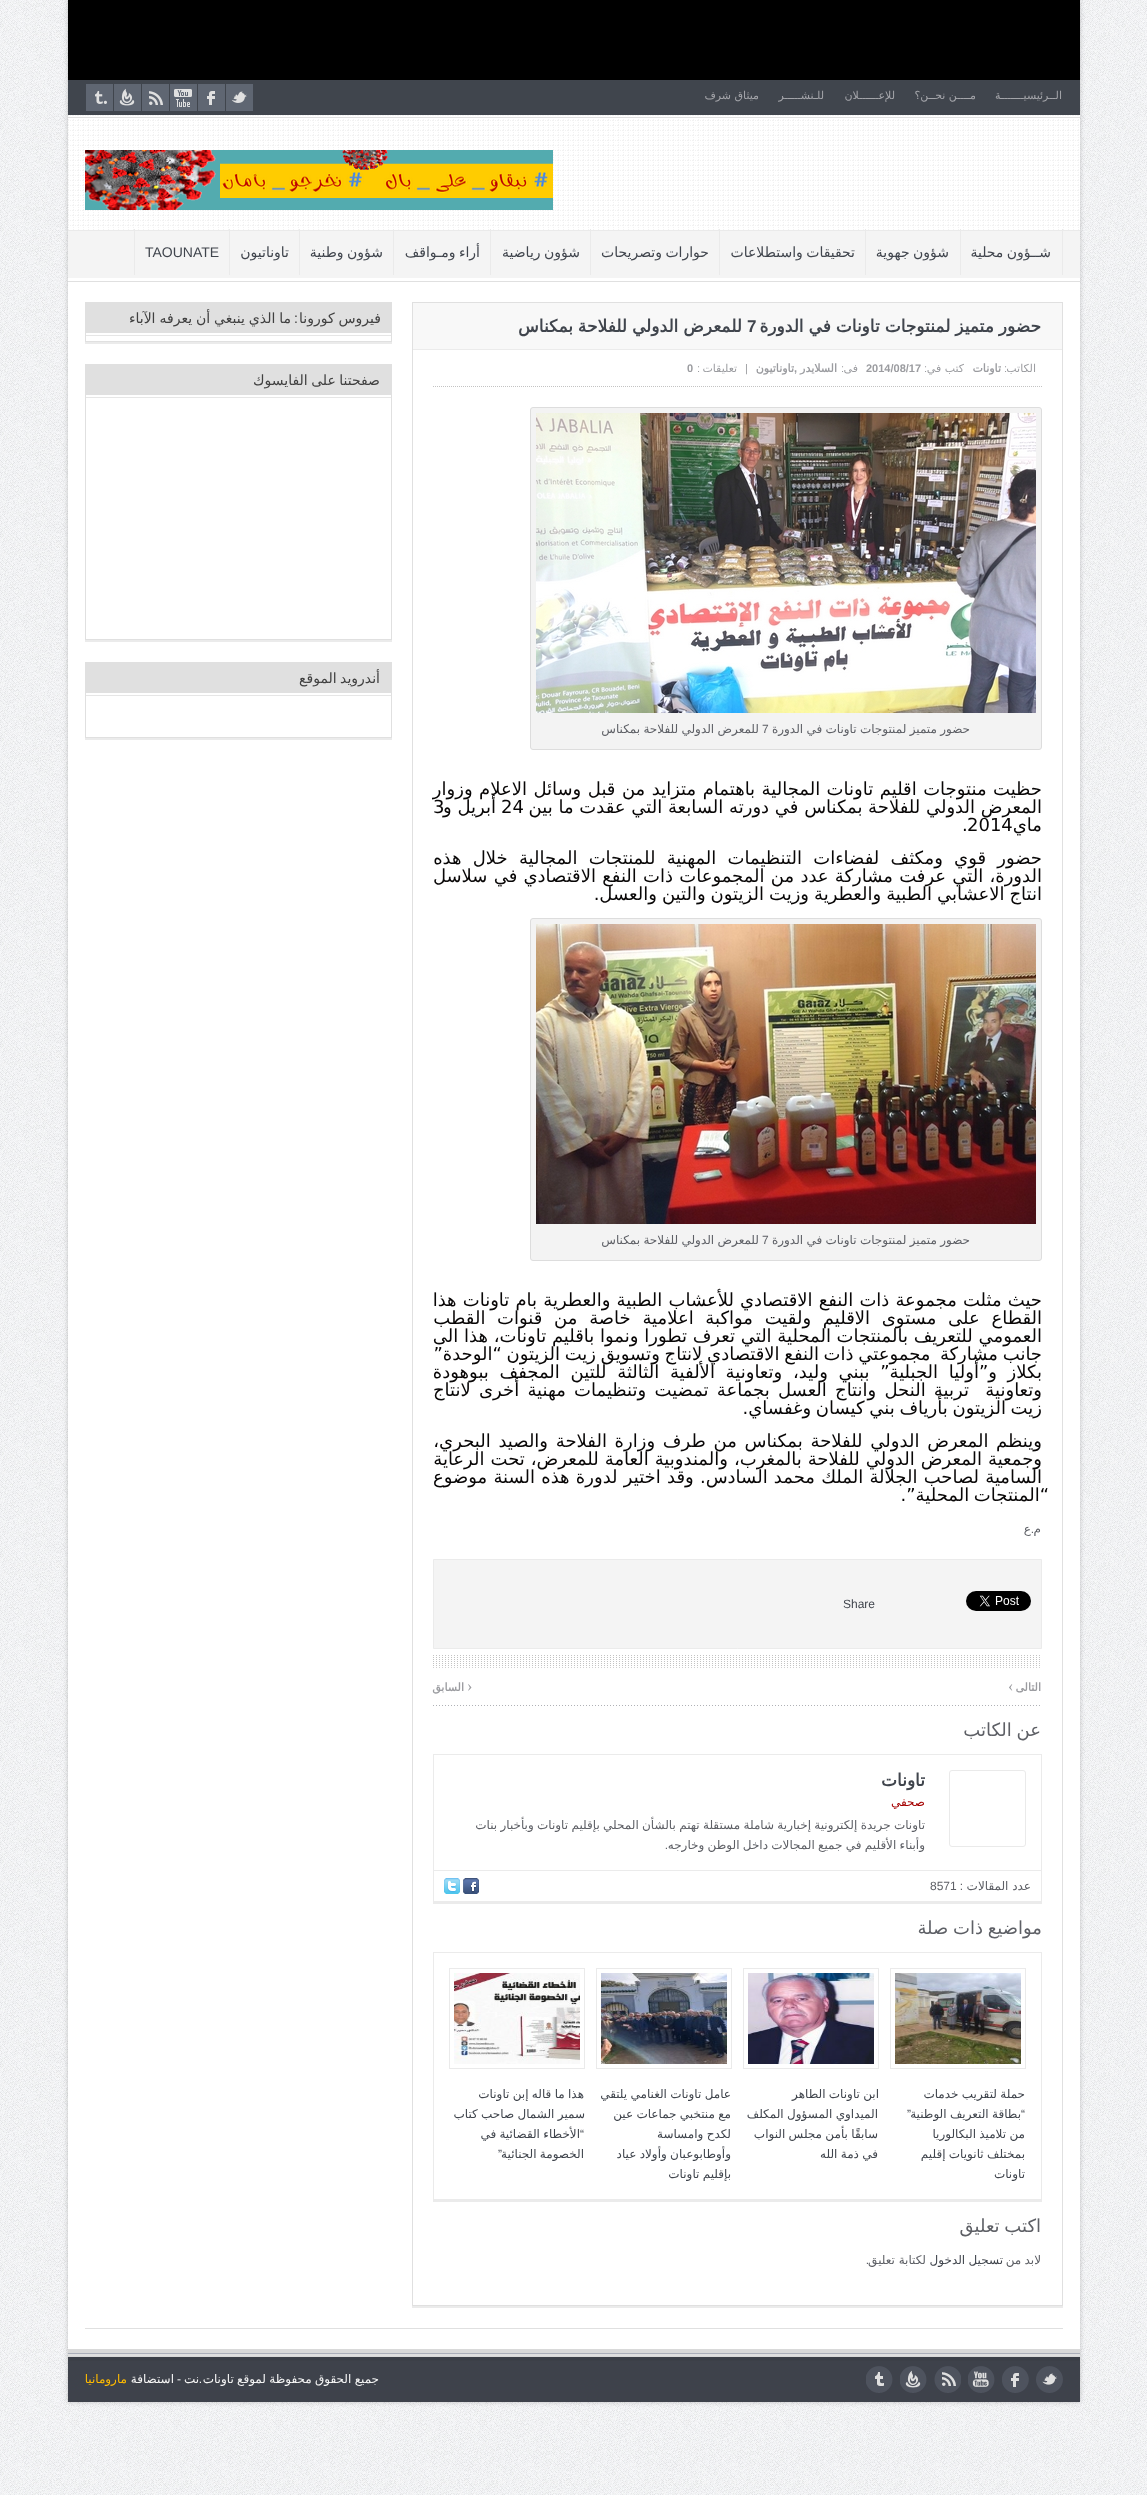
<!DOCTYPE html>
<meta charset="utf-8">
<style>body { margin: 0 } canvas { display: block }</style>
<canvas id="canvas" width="1147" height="2495"></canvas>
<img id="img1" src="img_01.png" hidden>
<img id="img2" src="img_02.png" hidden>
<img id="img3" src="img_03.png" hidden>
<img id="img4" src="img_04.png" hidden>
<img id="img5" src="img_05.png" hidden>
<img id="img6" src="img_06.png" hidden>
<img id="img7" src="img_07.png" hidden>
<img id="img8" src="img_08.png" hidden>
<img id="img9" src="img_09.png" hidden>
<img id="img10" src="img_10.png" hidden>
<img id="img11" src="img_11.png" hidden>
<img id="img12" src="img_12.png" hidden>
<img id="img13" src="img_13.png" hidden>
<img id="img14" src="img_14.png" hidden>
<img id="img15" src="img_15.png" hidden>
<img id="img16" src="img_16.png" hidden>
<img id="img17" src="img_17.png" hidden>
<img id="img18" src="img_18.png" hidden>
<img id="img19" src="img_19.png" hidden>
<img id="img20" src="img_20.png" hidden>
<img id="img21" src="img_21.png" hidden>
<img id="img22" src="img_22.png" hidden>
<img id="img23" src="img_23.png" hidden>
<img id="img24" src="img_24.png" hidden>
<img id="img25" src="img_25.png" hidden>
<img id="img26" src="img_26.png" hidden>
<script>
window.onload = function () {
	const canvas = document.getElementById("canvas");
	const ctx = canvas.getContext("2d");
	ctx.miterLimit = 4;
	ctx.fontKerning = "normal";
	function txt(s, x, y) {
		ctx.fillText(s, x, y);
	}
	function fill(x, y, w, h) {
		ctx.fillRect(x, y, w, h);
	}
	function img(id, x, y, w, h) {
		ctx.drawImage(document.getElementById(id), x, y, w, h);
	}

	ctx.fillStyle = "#FFFFFF";
	fill(0, 0, 1147, 2495);
	img("img1", 0, 0, 1147, 2495);
	ctx.fillStyle = "rgba(0, 0, 0, 0.2)";
	ctx.filter = "blur(2.5px)";
	ctx.beginPath();
	ctx.rect(68, 0, 1012, 2402);
	ctx.fill();
	ctx.filter = "none";
	ctx.fillStyle = "#FFFFFF";
	fill(68, 115, 1012, 2234);
	ctx.fillStyle = "#000000";
	fill(68, 0, 1012, 80);
	ctx.fillStyle = "#40454D";
	fill(68, 80, 1012, 35);
	ctx.fillStyle = "#5F6672";
	fill(226, 84, 27, 27);
	img("img2", 231, 91, 16, 12);
	fill(198, 84, 27, 27);
	img("img3", 207, 91, 8, 14);
	fill(170, 84, 27, 27);
	img("img4", 174, 89, 18, 18);
	fill(142, 84, 27, 27);
	img("img5", 149, 91, 14, 14);
	fill(114, 84, 27, 27);
	img("img6", 119, 88, 16, 18);
	fill(86, 84, 27, 27);
	img("img7", 95, 91, 12, 13);
	img("img8", 68, 115, 1011, 115);
	ctx.fillStyle = "#E0E0E0";
	fill(68, 117, 1012, 1);
	img("img9", 85, 150, 468, 60);
	fill(68, 281, 1012, 1);
	ctx.fillStyle = "#F4F4F4";
	fill(68, 231, 1012, 47);
	ctx.fillStyle = "#EAEAEA";
	fill(68, 230, 1012, 1);
	fill(1062, 229, 1, 46);
	fill(960, 229, 1, 46);
	fill(865, 229, 1, 46);
	fill(719, 229, 1, 46);
	fill(590, 229, 1, 46);
	fill(490, 229, 1, 46);
	fill(393, 229, 1, 46);
	fill(299, 229, 1, 46);
	fill(229, 229, 1, 46);
	fill(134, 229, 1, 46);
	ctx.fillStyle = "#E0E0E0";
	fill(85, 2328, 978, 1);
	ctx.fillStyle = "#EBEBEB";
	fill(412, 2306, 651, 2);
	ctx.strokeStyle = "#E0E0E0";
	ctx.strokeRect(412.5, 302.5, 650, 2003);
	ctx.fillStyle = "#F8F8F8";
	fill(413, 303, 649, 46);
	ctx.fillStyle = "#EBEBEB";
	fill(413, 349, 649, 1);
	ctx.beginPath();
	ctx.moveTo(433, 386.5);
	ctx.lineTo(1042, 386.5);
	ctx.strokeStyle = "#C3C3C3";
	ctx.setLineDash([1, 1]);
	ctx.stroke();
	ctx.fillStyle = "#F3F3F3";
	ctx.beginPath();
	ctx.roundRect(530.5, 407.5, 511, 342, 2.5);
	ctx.fill();
	ctx.strokeStyle = "#DDDDDD";
	ctx.setLineDash([]);
	ctx.stroke();
	img("img10", 536, 413, 500, 300);
	ctx.beginPath();
	ctx.roundRect(530.5, 918.5, 511, 342, 2.5);
	ctx.fill();
	ctx.stroke();
	img("img11", 536, 924, 500, 300);
	ctx.fillStyle = "#F4F4F4";
	ctx.beginPath();
	ctx.rect(433.5, 1559.5, 608, 89);
	ctx.fill();
	ctx.strokeStyle = "#EBEBEB";
	ctx.stroke();
	img("img12", 966, 1591, 65, 20);
	img("img13", 433, 1655, 607, 13);
	img("img14", 433, 1705, 607, 1);
	ctx.fillStyle = "#EBEBEB";
	fill(433, 1754, 609, 1);
	fill(1041, 1754, 1, 150);
	fill(433, 1901, 609, 3);
	fill(433, 1754, 1, 150);
	ctx.beginPath();
	ctx.roundRect(949.5, 1770.5, 76, 76, 2.5);
	ctx.strokeStyle = "#EAEAEA";
	ctx.stroke();
	fill(434, 1870, 607, 1);
	img("img15", 463, 1878, 16, 16);
	img("img16", 444, 1878, 16, 16);
	fill(433, 1952, 609, 1);
	fill(1041, 1952, 1, 250);
	fill(433, 2199, 609, 3);
	fill(433, 1952, 1, 250);
	ctx.strokeRect(890.5, 1968.5, 135, 100);
	img("img17", 895, 1973, 126, 91);
	ctx.strokeRect(743.5, 1968.5, 135, 100);
	img("img18", 748, 1973, 126, 91);
	ctx.strokeRect(596.5, 1968.5, 135, 100);
	img("img19", 601, 1973, 126, 91);
	ctx.strokeRect(449.5, 1968.5, 135, 100);
	img("img20", 454, 1973, 126, 91);
	fill(85, 342, 307, 2);
	ctx.strokeStyle = "#E0E0E0";
	ctx.strokeRect(85.5, 302.5, 306, 39);
	ctx.fillStyle = "#E0E0E0";
	fill(86, 303, 305, 30);
	ctx.fillStyle = "#E6E6E6";
	fill(86, 335, 305, 1);
	ctx.fillStyle = "#EBEBEB";
	fill(85, 640, 307, 2);
	ctx.strokeRect(85.5, 364.5, 306, 275);
	ctx.fillStyle = "#E0E0E0";
	fill(86, 365, 305, 30);
	ctx.fillStyle = "#E6E6E6";
	fill(86, 397, 305, 1);
	ctx.fillStyle = "#EBEBEB";
	fill(85, 738, 307, 2);
	ctx.strokeRect(85.5, 662.5, 306, 75);
	ctx.fillStyle = "#E0E0E0";
	fill(86, 663, 305, 30);
	ctx.fillStyle = "#E6E6E6";
	fill(86, 695, 305, 1);
	ctx.fillStyle = "#E0E0E0";
	fill(68, 2354, 1012, 2);
	ctx.fillStyle = "#D9D9D9";
	fill(68, 2349, 1012, 4);
	fill(68, 2356, 1012, 1);
	ctx.fillStyle = "#ABAFBA";
	fill(68, 2353, 1012, 1);
	ctx.fillStyle = "#3E424B";
	fill(68, 2361, 1012, 41);
	ctx.fillStyle = "#3C4048";
	fill(68, 2357, 1012, 4);
	img("img21", 1036, 2366, 27, 27);
	img("img22", 1002, 2366, 27, 27);
	img("img23", 968, 2366, 27, 27);
	img("img24", 934, 2366, 27, 27);
	img("img25", 900, 2366, 27, 27);
	img("img26", 866, 2366, 27, 27);
	ctx.direction = "rtl";
	ctx.font = "11px DejaVu Sans";
	ctx.fillStyle = "#A4A5AA";
	txt("الــرئيسيـــــــة", 1062, 99);
	txt("مــــن نحــن؟", 976, 99);
	txt("للإعــــــلان", 895, 99);
	txt("للـنشـــــر", 824, 99);
	txt("ميثاق شرف", 759, 99);
	ctx.wordSpacing = "-1px";
	ctx.font = "14px DejaVu Sans";
	ctx.fillStyle = "#40454D";
	txt("شــؤون محلية", 1051, 257);
	txt("شؤون جهوية", 949, 257);
	txt("تحقيقات واستطلاعات", 855, 257);
	txt("حوارات وتصريحات", 709, 257);
	txt("شؤون رياضية", 580, 257);
	txt("أراء ومـواقف", 480, 257);
	txt("شؤون وطنية", 383, 257);
	ctx.wordSpacing = "0px";
	txt("تاوناتيون", 289, 257);
	ctx.direction = "ltr";
	ctx.font = "14px Liberation Sans";
	txt("TAOUNATE", 145, 257);
	ctx.wordSpacing = "-0.5px";
	ctx.direction = "rtl";
	ctx.font = "bold 17px DejaVu Sans";
	txt("حضور متميز لمنتوجات تاونات في الدورة", 1041, 332);
	ctx.wordSpacing = "0px";
	ctx.direction = "ltr";
	ctx.font = "bold 17px Liberation Sans";
	txt("7", 747, 332);
	ctx.wordSpacing = "-0.5px";
	ctx.direction = "rtl";
	ctx.font = "bold 17px DejaVu Sans";
	txt("للمعرض الدولي للفلاحة بمكناس", 742, 332);
	ctx.wordSpacing = "0px";
	ctx.font = "11px DejaVu Sans";
	ctx.fillStyle = "#9B9CA0";
	txt("الكاتب", 1036, 372);
	ctx.font = "11px Liberation Sans";
	txt(":", 1007, 372);
	ctx.font = "bold 11px DejaVu Sans";
	txt("تاونات", 1001, 372);
	ctx.font = "11px DejaVu Sans";
	txt("كتب في", 964, 372);
	ctx.font = "11px Liberation Sans";
	txt(":", 927, 372);
	ctx.direction = "ltr";
	ctx.font = "bold 11px Liberation Sans";
	txt("2014/08/17", 866, 372);
	ctx.direction = "rtl";
	ctx.font = "11px DejaVu Sans";
	txt("فى", 858, 372);
	ctx.font = "11px Liberation Sans";
	txt(":", 844, 372);
	ctx.font = "bold 11px DejaVu Sans";
	txt("السلايدر", 837, 372);
	ctx.direction = "ltr";
	ctx.font = "bold 11px Liberation Sans";
	txt(",", 794, 372);
	ctx.direction = "rtl";
	ctx.font = "bold 11px DejaVu Sans";
	txt("تاوناتيون", 794, 372);
	ctx.direction = "ltr";
	ctx.font = "11px Liberation Sans";
	txt("|", 745, 372);
	ctx.direction = "rtl";
	ctx.font = "11px DejaVu Sans";
	txt("تعليقات", 737, 372);
	ctx.font = "11px Liberation Sans";
	txt(":", 700, 372);
	ctx.direction = "ltr";
	ctx.font = "bold 11px Liberation Sans";
	txt("0", 687, 372);
	ctx.wordSpacing = "-0.5px";
	ctx.direction = "rtl";
	ctx.font = "12px DejaVu Sans";
	ctx.fillStyle = "#5E6066";
	txt("حضور متميز لمنتوجات تاونات في الدورة", 970, 733);
	ctx.wordSpacing = "0px";
	ctx.direction = "ltr";
	ctx.font = "12px Liberation Sans";
	txt("7", 762, 733);
	ctx.wordSpacing = "-0.5px";
	ctx.direction = "rtl";
	ctx.font = "12px DejaVu Sans";
	txt("للمعرض الدولي للفلاحة بمكناس", 759, 733);
	ctx.wordSpacing = "0.75px";
	ctx.font = "18px DejaVu Sans";
	ctx.fillStyle = "#080606";
	txt("حظيت منتوجات اقليم تاونات المجالية باهتمام متزايد من قبل وسائل الاعلام وزوار", 1042, 795);
	ctx.wordSpacing = "0px";
	txt("المعرض الدولي للفلاحة بمكناس في دورته السابعة التي عقدت ما بين", 1042, 813);
	ctx.direction = "ltr";
	txt("24", 501, 813);
	txt("3", 433, 813);
	ctx.direction = "rtl";
	txt("أبريل و", 496, 813);
	txt("ماي", 1042, 831);
	ctx.direction = "ltr";
	txt("2014", 967, 831);
	txt(".", 962, 831);
	ctx.wordSpacing = "5.5px";
	ctx.direction = "rtl";
	txt("حضور قوي ومكثف لفضاءات التنظيمات المهنية للمنتجات المجالية خلال هذه", 1042, 864);
	ctx.wordSpacing = "0.5px";
	txt("الدورة، التي عرفت مشاركة عدد من المجموعات ذات النفع الاقتصادي في سلاسل", 1042, 882);
	ctx.wordSpacing = "-0.75px";
	txt("انتاج الاعشابي الطبية والعطرية وزيت الزيتون والتين والعسل.", 1042, 900);
	ctx.wordSpacing = "-0.5px";
	ctx.font = "12px DejaVu Sans";
	ctx.fillStyle = "#5E6066";
	txt("حضور متميز لمنتوجات تاونات في الدورة", 970, 1244);
	ctx.wordSpacing = "0px";
	ctx.direction = "ltr";
	ctx.font = "12px Liberation Sans";
	txt("7", 762, 1244);
	ctx.wordSpacing = "-0.5px";
	ctx.direction = "rtl";
	ctx.font = "12px DejaVu Sans";
	txt("للمعرض الدولي للفلاحة بمكناس", 759, 1244);
	ctx.wordSpacing = "0.4px";
	ctx.font = "18px DejaVu Sans";
	ctx.fillStyle = "#080606";
	txt("حيث مثلت مجموعة ذات النفع الاقتصادي للأعشاب الطبية والعطرية بام تاونات هذا", 1042, 1306);
	ctx.wordSpacing = "6px";
	txt("القطاع على مستوى الاقليم ولقيت مواكبة اعلامية خاصة من قنوات القطب", 1042, 1324);
	ctx.wordSpacing = "0px";
	txt("العمومي للتعريف بالمنتجات المحلية التي تعرف تطورا ونموا باقليم تاونات، هذا الى", 1042, 1342);
	ctx.wordSpacing = "-1px";
	txt("جانب مشاركة  مجموعتي ذات النفع الاقتصادي لانتاج وتسويق زيت الزيتون “الوحدة”", 1042, 1360);
	ctx.wordSpacing = "5px";
	txt("بكلاز و”أوليا الجبلية” ببني وليد، وتعاونية الألفية الثالثة للتين المجفف ببوهودة", 1042, 1378);
	ctx.wordSpacing = "2.5px";
	txt("وتعاونية  تربية النحل وانتاج العسل بجماعة تمضيت وتنظيمات مهنية أخرى لانتاج", 1042, 1396);
	ctx.wordSpacing = "-1px";
	txt("زيت الزيتون بأرياف بني كيسان وغفساي.", 1042, 1414);
	ctx.wordSpacing = "2px";
	txt("وينظم المعرض الدولي للفلاحة بمكناس من طرف وزارة الفلاحة والصيد البحري،", 1042, 1447);
	ctx.wordSpacing = "0.25px";
	txt("وجمعية المعرض الدولي للفلاحة بالمغرب، والمندوبية العامة للمعرض، تحت الرعاية", 1042, 1465);
	ctx.wordSpacing = "0.5px";
	txt("السامية لصاحب الجلالة الملك محمد السادس. وقد اختير لدورة هذه السنة موضوع", 1042, 1483);
	ctx.wordSpacing = "-1px";
	txt("“المنتجات المحلية”.", 1049, 1501);
	ctx.wordSpacing = "0px";
	ctx.font = "12px DejaVu Sans";
	ctx.fillStyle = "#5E6066";
	txt("م", 1041, 1533);
	ctx.font = "12px Liberation Sans";
	txt(".", 1034, 1533);
	ctx.font = "12px DejaVu Sans";
	txt("ع", 1031, 1533);
	ctx.direction = "ltr";
	ctx.font = "12px Liberation Sans";
	ctx.fillStyle = "#40454D";
	txt("Share", 843, 1608);
	ctx.direction = "rtl";
	ctx.font = "bold 11px DejaVu Sans";
	ctx.fillStyle = "#9B9CA0";
	txt("التالى", 1041, 1691);
	ctx.direction = "ltr";
	ctx.font = "16px Liberation Serif";
	txt("‹", 1008, 1691);
	txt("›", 467, 1691);
	ctx.direction = "rtl";
	ctx.font = "bold 11px DejaVu Sans";
	txt("السابق", 464, 1691);
	ctx.wordSpacing = "-1px";
	ctx.font = "18px DejaVu Sans";
	ctx.fillStyle = "#5E6066";
	txt("عن الكاتب", 1041, 1736);
	ctx.wordSpacing = "0px";
	ctx.font = "bold 17px DejaVu Sans";
	ctx.fillStyle = "#40454D";
	txt("تاونات", 925, 1786);
	ctx.font = "12px DejaVu Sans";
	ctx.fillStyle = "#A50000";
	txt("صحفي", 925, 1806);
	ctx.wordSpacing = "-0.5px";
	ctx.fillStyle = "#5E6066";
	txt("تاونات جريدة إلكترونية إخبارية شاملة مستقلة تهتم بالشأن المحلي بإقليم تاونات وبأخبار بنات", 925, 1829);
	txt("وأبناء الأقليم في جميع المجالات داخل الوطن وخارجه", 925, 1849);
	ctx.wordSpacing = "0px";
	ctx.font = "12px Liberation Sans";
	txt(".", 668, 1849);
	ctx.font = "12px DejaVu Sans";
	txt("عدد المقالات", 1031, 1890);
	ctx.font = "12px Liberation Sans";
	txt(":", 963, 1890);
	ctx.direction = "ltr";
	txt("8571", 930, 1890);
	ctx.wordSpacing = "-1px";
	ctx.direction = "rtl";
	ctx.font = "18px DejaVu Sans";
	txt("مواضيع ذات صلة", 1042, 1934);
	ctx.wordSpacing = "-0.5px";
	ctx.font = "12px DejaVu Sans";
	ctx.fillStyle = "#40454D";
	txt("حملة لتقريب خدمات", 1025, 2098);
	txt("بطاقة التعريف الوطنية", 1021, 2118);
	ctx.wordSpacing = "0px";
	ctx.font = "12px Liberation Sans";
	txt("“", 1025, 2118);
	txt("”", 911, 2118);
	ctx.wordSpacing = "-0.5px";
	ctx.font = "12px DejaVu Sans";
	txt("من تلاميذ البكالوريا", 1025, 2138);
	txt("بمختلف ثانويات إقليم", 1025, 2158);
	ctx.wordSpacing = "0px";
	txt("تاونات", 1025, 2178);
	ctx.wordSpacing = "-0.5px";
	txt("ابن تاونات الطاهر", 879, 2098);
	txt("الميداوي المسؤول المكلف", 878, 2118);
	txt("سابقًا بأمن مجلس النواب", 878, 2138);
	txt("في ذمة الله", 878, 2158);
	txt("عامل تاونات الغنامي يلتقي", 731, 2098);
	txt("مع منتخبي جماعات عين", 731, 2118);
	txt("لكدح وامساسة", 731, 2138);
	txt("وأوطابوعبان وأولاد عياد", 731, 2158);
	txt("بإقليم تاونات", 731, 2178);
	txt("هذا ما قاله إبن تاونات", 584, 2098);
	txt("سمير الشمال صاحب كتاب", 585, 2118);
	txt("الأخطاء القضائية في", 580, 2138);
	ctx.wordSpacing = "0px";
	ctx.font = "12px Liberation Sans";
	txt("“", 584, 2138);
	ctx.wordSpacing = "-0.5px";
	ctx.font = "12px DejaVu Sans";
	txt("الخصومة الجنائية", 584, 2158);
	ctx.wordSpacing = "0px";
	ctx.font = "12px Liberation Sans";
	txt("”", 502, 2158);
	ctx.wordSpacing = "-1px";
	ctx.font = "18px DejaVu Sans";
	ctx.fillStyle = "#5E6066";
	txt("اكتب تعليق", 1041, 2232);
	ctx.wordSpacing = "-0.5px";
	ctx.font = "12px DejaVu Sans";
	txt("لابد من", 1041, 2264);
	ctx.fillStyle = "#40454D";
	txt("تسجيل الدخول", 1003, 2264);
	ctx.wordSpacing = "0px";
	ctx.fillStyle = "#5E6066";
	txt("لكتابة تعليق", 926, 2264);
	ctx.font = "12px Liberation Sans";
	txt(".", 869, 2264);
	ctx.wordSpacing = "-0.5px";
	ctx.font = "14px DejaVu Sans";
	ctx.fillStyle = "#404040";
	txt("فيروس كورونا", 381, 323);
	ctx.wordSpacing = "0px";
	ctx.font = "14px Liberation Sans";
	txt(":", 298, 323);
	ctx.wordSpacing = "-0.5px";
	ctx.font = "14px DejaVu Sans";
	txt("ما الذي ينبغي أن يعرفه الآباء", 291, 323);
	ctx.wordSpacing = "-1px";
	txt("صفحتنا على الفايسوك", 380, 385);
	txt("أندرويد الموقع", 380, 683);
	ctx.wordSpacing = "-0.5px";
	ctx.font = "12px DejaVu Sans";
	ctx.fillStyle = "#F6F6F6";
	txt("جميع الحقوق محفوظة لموقع تاونات", 379, 2383);
	ctx.wordSpacing = "0px";
	txt("نت", 199, 2383);
	ctx.font = "12px Liberation Sans";
	txt("-", 181, 2383);
	ctx.font = "12px DejaVu Sans";
	txt("استضافة", 174, 2383);
	ctx.fillStyle = "#FFBB00";
	txt("مارومانيا", 127, 2383);
	ctx.font = "12px Liberation Sans";
	ctx.fillStyle = "#F6F6F6";
	txt(".", 202, 2383);
};
</script>
